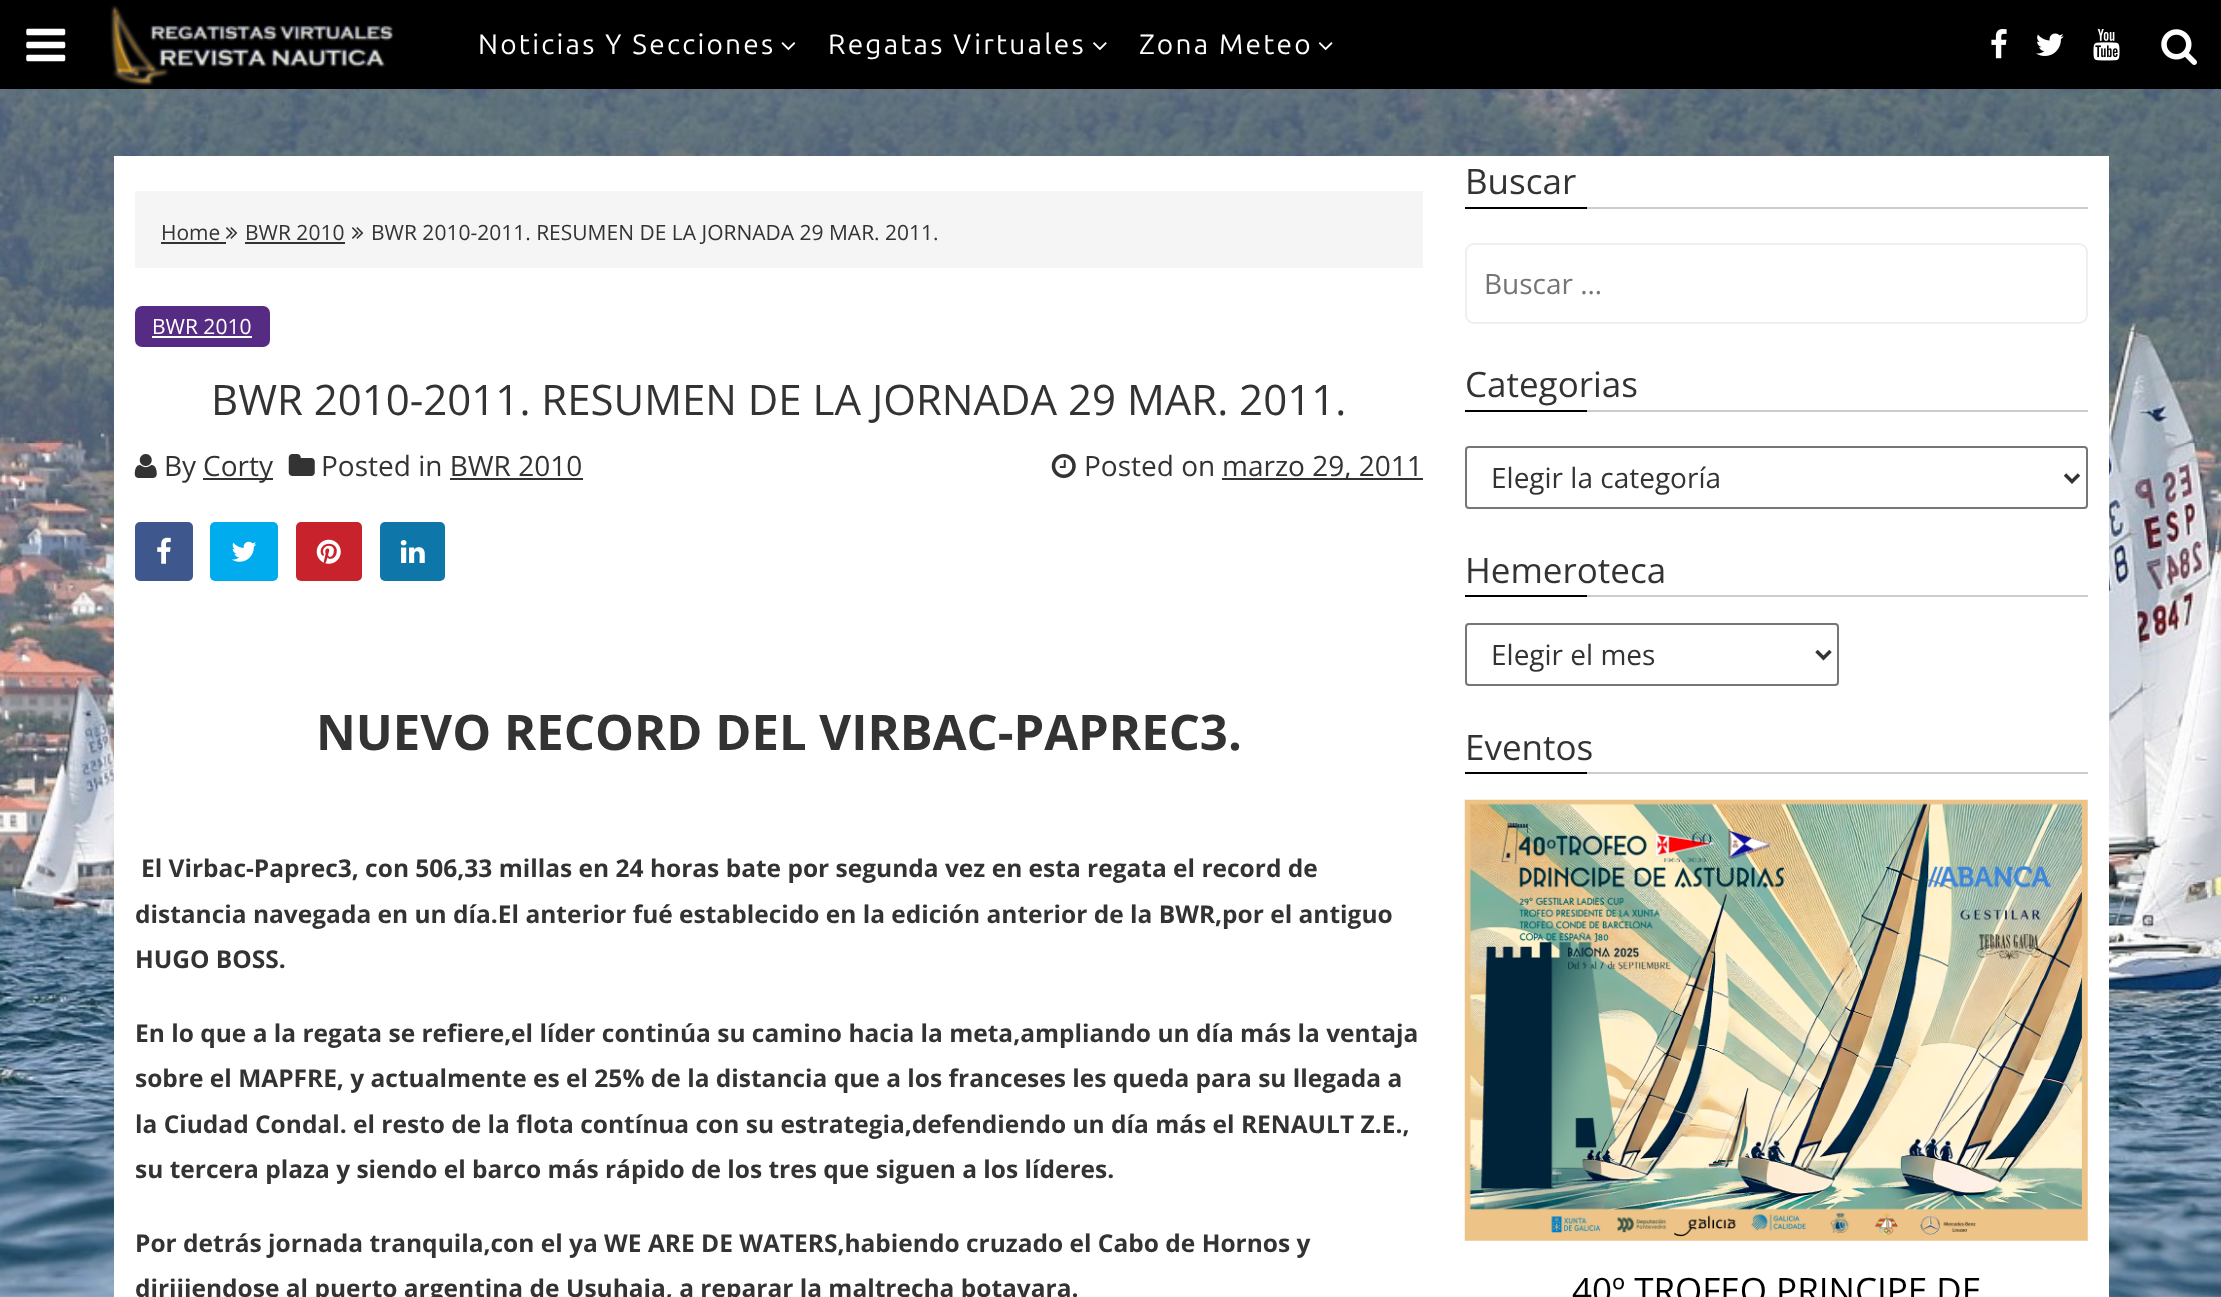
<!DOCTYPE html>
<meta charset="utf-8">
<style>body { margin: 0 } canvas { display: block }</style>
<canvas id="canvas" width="2221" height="1297"></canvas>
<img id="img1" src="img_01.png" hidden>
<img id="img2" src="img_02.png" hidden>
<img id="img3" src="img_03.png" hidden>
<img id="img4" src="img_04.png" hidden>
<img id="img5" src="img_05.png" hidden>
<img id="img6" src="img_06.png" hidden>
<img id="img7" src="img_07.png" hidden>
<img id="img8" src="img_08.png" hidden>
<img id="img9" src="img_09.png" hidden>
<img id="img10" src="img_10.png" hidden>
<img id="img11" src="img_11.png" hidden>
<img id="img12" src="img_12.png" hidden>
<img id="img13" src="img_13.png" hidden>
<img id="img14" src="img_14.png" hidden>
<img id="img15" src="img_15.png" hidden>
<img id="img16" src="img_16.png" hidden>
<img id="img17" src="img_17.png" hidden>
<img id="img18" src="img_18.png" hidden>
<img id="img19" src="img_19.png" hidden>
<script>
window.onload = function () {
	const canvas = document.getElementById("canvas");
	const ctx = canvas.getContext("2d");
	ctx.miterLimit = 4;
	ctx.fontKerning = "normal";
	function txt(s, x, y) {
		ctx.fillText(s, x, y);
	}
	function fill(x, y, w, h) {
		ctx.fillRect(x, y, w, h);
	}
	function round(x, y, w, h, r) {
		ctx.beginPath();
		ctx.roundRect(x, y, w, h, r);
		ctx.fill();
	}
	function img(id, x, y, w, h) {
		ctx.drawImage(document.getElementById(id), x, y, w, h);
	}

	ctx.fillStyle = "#FFFFFF";
	fill(0, 0, 2221, 1297);
	img("img1", 0, 89, 2221, 1208);
	ctx.fillStyle = "#000000";
	fill(0, 0, 2221, 89);
	img("img2", 26, 28, 40, 34);
	img("img3", 110, 5, 284, 81);
	img("img4", 781, 42, 15, 9);
	img("img5", 1093, 42, 14, 9);
	img("img6", 1318, 42, 15, 9);
	img("img7", 1991, 29, 16, 30);
	img("img8", 2036, 33, 28, 23);
	img("img9", 2093, 29, 27, 32);
	img("img10", 2161, 29, 36, 36);
	ctx.fillStyle = "#FFFFFF";
	fill(114, 156, 1995, 1141);
	ctx.fillStyle = "#F5F5F5";
	fill(135, 191, 1288, 77);
	ctx.fillStyle = "#333333";
	fill(161, 242, 65, 2);
	img("img11", 226, 227, 12, 12);
	fill(245, 242, 100, 2);
	img("img11", 352, 227, 12, 12);
	ctx.fillStyle = "#562B84";
	round(135, 306, 135, 41, 7);
	ctx.fillStyle = "#FFFFFF";
	fill(152, 336, 100, 2);
	img("img12", 134, 454, 23, 24);
	ctx.fillStyle = "#333333";
	fill(203, 478, 70, 2);
	img("img13", 288, 454, 27, 22);
	fill(450, 478, 133, 2);
	img("img14", 1051, 454, 25, 24);
	fill(1222, 478, 201, 2);
	ctx.fillStyle = "#3E578C";
	round(135, 522, 58, 59, 5);
	img("img15", 157, 537, 14, 27);
	ctx.fillStyle = "#00ACEE";
	round(210, 522, 68, 59, 5);
	img("img16", 231, 541, 26, 21);
	ctx.fillStyle = "#C8232C";
	round(296, 522, 66, 59, 5);
	img("img17", 316, 539, 25, 25);
	ctx.fillStyle = "#0E76A8";
	round(380, 522, 65, 59, 5);
	img("img18", 400, 540, 25, 23);
	ctx.fillStyle = "#000000";
	fill(1465, 207, 122, 2);
	ctx.fillStyle = "#CCCCCC";
	fill(1587, 207, 501, 2);
	ctx.beginPath();
	ctx.roundRect(1466, 244, 621, 79, 8);
	ctx.strokeStyle = "#EFEFEF";
	ctx.lineWidth = 2;
	ctx.stroke();
	ctx.fillStyle = "#000000";
	fill(1465, 410, 122, 2);
	ctx.fillStyle = "#CCCCCC";
	fill(1587, 410, 501, 2);
	ctx.beginPath();
	ctx.roundRect(1466, 447, 621, 61, 3);
	ctx.strokeStyle = "#767676";
	ctx.stroke();
	ctx.beginPath();
	ctx.moveTo(2065, 474.5);
	ctx.lineTo(2072, 481.5);
	ctx.lineTo(2079, 474.5);
	ctx.strokeStyle = "#333333";
	ctx.lineWidth = 3.5;
	ctx.stroke();
	ctx.fillStyle = "#000000";
	fill(1465, 595, 122, 2);
	ctx.fillStyle = "#CCCCCC";
	fill(1587, 595, 501, 2);
	ctx.beginPath();
	ctx.roundRect(1466, 624, 372, 61, 3);
	ctx.strokeStyle = "#767676";
	ctx.lineWidth = 2;
	ctx.stroke();
	ctx.beginPath();
	ctx.moveTo(1816.5, 651);
	ctx.lineTo(1823.5, 658);
	ctx.lineTo(1830.5, 651);
	ctx.strokeStyle = "#333333";
	ctx.lineWidth = 3.5;
	ctx.stroke();
	ctx.fillStyle = "#000000";
	fill(1465, 772, 122, 2);
	ctx.fillStyle = "#CCCCCC";
	fill(1587, 772, 501, 2);
	img("img19", 1464, 799, 624, 442);
	ctx.letterSpacing = "2.25px";
	ctx.font = "28px Ubuntu";
	ctx.fillStyle = "#FFFFFF";
	txt("Noticias Y Secciones", 478, 54);
	txt("Regatas Virtuales", 828, 54);
	txt("Zona Meteo", 1139, 54);
	ctx.letterSpacing = "0px";
	ctx.font = "21px Open Sans";
	ctx.fillStyle = "#333333";
	txt("Home", 161, 240);
	txt("BWR 2010", 245, 240);
	txt("BWR 2010-2011. RESUMEN DE LA JORNADA 29 MAR. 2011.", 371, 240);
	ctx.fillStyle = "#FFFFFF";
	txt("BWR 2010", 152, 334);
	ctx.font = "42px Open Sans";
	ctx.fillStyle = "#333333";
	txt("BWR 2010-2011. RESUMEN DE LA JORNADA 29 MAR. 2011.", 211, 415);
	ctx.font = "28px Open Sans";
	txt("By", 164, 476);
	txt("Corty", 203, 476);
	txt("Posted in BWR 2010", 321, 476);
	txt("Posted on", 1084, 476);
	txt("marzo 29, 2011", 1222, 476);
	ctx.font = "bold 49px Open Sans";
	txt("NUEVO RECORD DEL VIRBAC-PAPREC3.", 316, 750);
	ctx.font = "bold 24.5px Open Sans";
	txt("El Virbac-Paprec3, con 506,33 millas en 24 horas bate por segunda vez en esta regata el record de", 141, 877);
	txt("distancia navegada en un día.El anterior fué establecido en la edición anterior de la BWR,por el antiguo", 135, 923);
	txt("HUGO BOSS.", 135, 968);
	txt("En lo que a la regata se refiere,el líder continúa su camino hacia la meta,ampliando un día más la ventaja", 135, 1042);
	txt("sobre el MAPFRE, y actualmente es el 25% de la distancia que a los franceses les queda para su llegada a", 135, 1087);
	txt("la Ciudad Condal. el resto de la flota contínua con su estrategia,defendiendo un día más el RENAULT Z.E.,", 135, 1133);
	txt("su tercera plaza y siendo el barco más rápido de los tres que siguen a los líderes.", 135, 1178);
	txt("Por detrás jornada tranquila,con el ya WE ARE DE WATERS,habiendo cruzado el Cabo de Hornos y", 135, 1252);
	txt("dirijiendose al puerto argentina de Usuhaia, a reparar la maltrecha botavara.", 135, 1297);
	ctx.font = "35px Open Sans";
	txt("Buscar", 1465, 194);
	ctx.font = "28px Open Sans";
	ctx.fillStyle = "#757575";
	txt("Buscar …", 1484, 294);
	ctx.font = "35px Open Sans";
	ctx.fillStyle = "#333333";
	txt("Categorias", 1465, 397);
	ctx.font = "28px Open Sans";
	txt("Elegir la categoría", 1491, 488);
	ctx.font = "35px Open Sans";
	txt("Hemeroteca", 1465, 583);
	ctx.font = "28px Open Sans";
	txt("Elegir el mes", 1491, 665);
	ctx.font = "35px Open Sans";
	txt("Eventos", 1465, 760);
	ctx.fillStyle = "#000000";
	txt("40º TROFEO PRINCIPE DE", 1572, 1303);
};
</script>
